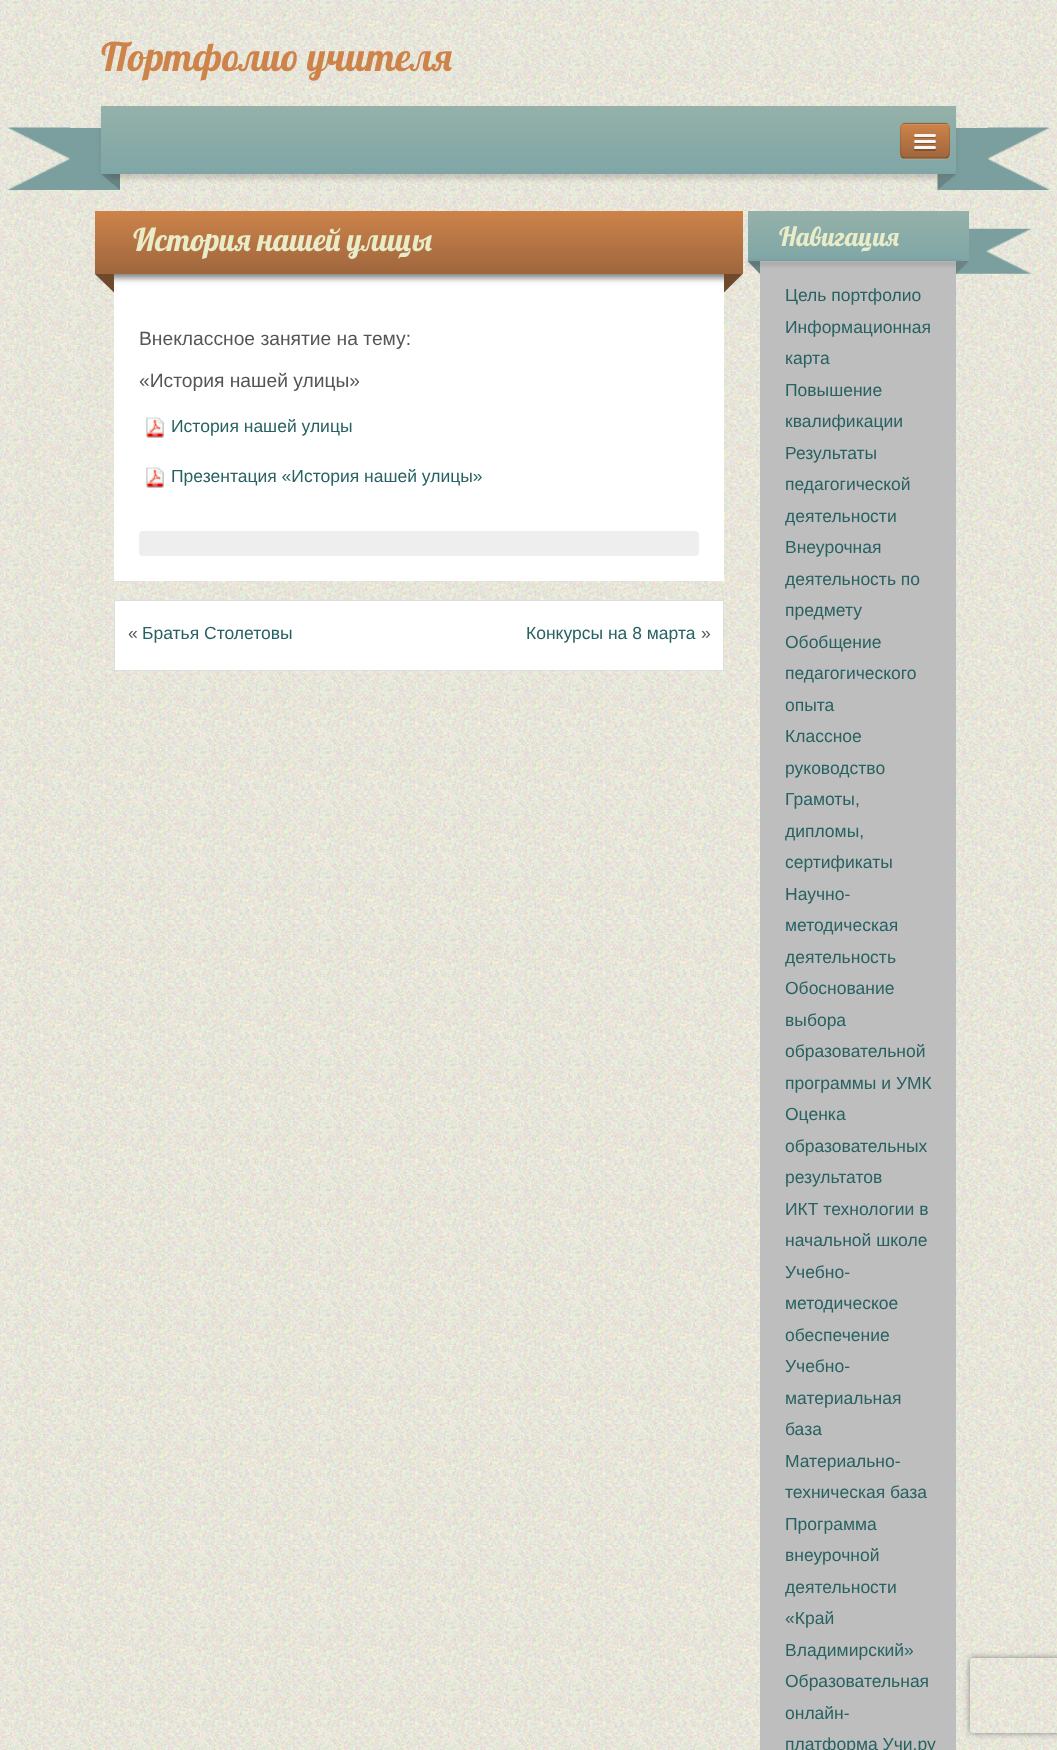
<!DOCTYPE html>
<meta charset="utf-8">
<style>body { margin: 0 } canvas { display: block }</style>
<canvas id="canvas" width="1057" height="1750"></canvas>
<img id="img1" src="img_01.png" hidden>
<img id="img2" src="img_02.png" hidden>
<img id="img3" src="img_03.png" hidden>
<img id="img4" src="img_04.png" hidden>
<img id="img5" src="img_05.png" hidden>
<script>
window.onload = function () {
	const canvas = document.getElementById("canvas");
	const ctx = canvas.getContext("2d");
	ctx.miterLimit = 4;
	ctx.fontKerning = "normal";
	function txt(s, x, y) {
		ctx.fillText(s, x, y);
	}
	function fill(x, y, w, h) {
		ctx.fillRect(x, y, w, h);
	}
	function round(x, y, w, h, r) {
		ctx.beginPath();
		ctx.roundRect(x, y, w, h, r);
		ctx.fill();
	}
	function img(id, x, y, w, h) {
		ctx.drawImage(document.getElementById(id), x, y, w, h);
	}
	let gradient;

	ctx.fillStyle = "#FFFFFF";
	fill(0, 0, 1057, 1750);
	img("img1", 0, 0, 1057, 1750);
	img("img2", 7, 127, 63, 63);
	ctx.fillStyle = "#7B9E9E";
	fill(938, 128, 50, 62);
	fill(70, 128, 50, 62);
	ctx.fillStyle = "#6A8484";
	ctx.beginPath();
	ctx.moveTo(101, 174);
	ctx.lineTo(120, 174);
	ctx.lineTo(120, 190);
	ctx.closePath();
	ctx.fill();
	ctx.fillStyle = "rgba(0, 0, 0, 0.9)";
	ctx.filter = "blur(3px)";
	ctx.beginPath();
	ctx.rect(108, 175, 842, 1);
	ctx.fill();
	ctx.filter = "none";
	ctx.fillStyle = "#6A8484";
	ctx.beginPath();
	ctx.moveTo(937.5, 190);
	ctx.lineTo(937.5, 174);
	ctx.lineTo(956, 174);
	ctx.closePath();
	ctx.fill();
	ctx.fillStyle = "rgba(0, 0, 0, 0.07)";
	ctx.filter = "blur(2.5px)";
	ctx.beginPath();
	ctx.roundRect(101, 108, 855, 67, 1);
	ctx.fill();
	ctx.filter = "none";
	gradient = ctx.createLinearGradient(529, 106, 529, 174);
	gradient.addColorStop(0, "#95B1A9");
	gradient.addColorStop(1, "#7FA6A6");
	ctx.fillStyle = gradient;
	round(101, 106, 855, 68, 1);
	ctx.fillStyle = "#8DAFAE";
	ctx.beginPath();
	ctx.moveTo(900, 154);
	ctx.bezierCurveTo(900, 161, 906, 160, 912, 160);
	ctx.lineTo(938, 160);
	ctx.bezierCurveTo(944, 160, 950, 161, 950, 154);
	ctx.bezierCurveTo(950, 157, 948, 159, 945, 159);
	ctx.lineTo(905, 159);
	ctx.bezierCurveTo(902, 159, 900, 157, 900, 154);
	ctx.closePath();
	ctx.fill();
	ctx.save();
	ctx.beginPath();
	ctx.roundRect(900, 123, 50, 36, 5);
	ctx.clip();
	gradient = ctx.createLinearGradient(925, 90, 925, 124);
	gradient.addColorStop(0, "#CD834A");
	gradient.addColorStop(1, "#9E663D");
	ctx.fillStyle = gradient;
	fill(900, 123, 50, 1);
	gradient = ctx.createLinearGradient(925, 124, 925, 158);
	gradient.addColorStop(0, "#CD834A");
	gradient.addColorStop(1, "#9E663D");
	ctx.fillStyle = gradient;
	fill(900, 124, 50, 34);
	gradient = ctx.createLinearGradient(925, 158, 925, 191);
	gradient.addColorStop(0, "#CD834A");
	gradient.addColorStop(1, "#9E663D");
	ctx.fillStyle = gradient;
	fill(900, 158, 50, 1);
	ctx.restore();
	ctx.fillStyle = "#D18F5C";
	ctx.beginPath();
	ctx.moveTo(905, 125);
	ctx.lineTo(945, 125);
	ctx.bezierCurveTo(947, 125, 949, 127, 949, 129);
	ctx.bezierCurveTo(949, 123, 943, 124, 938, 124);
	ctx.lineTo(912, 124);
	ctx.bezierCurveTo(907, 124, 901, 123, 901, 129);
	ctx.bezierCurveTo(901, 127, 903, 125, 905, 125);
	ctx.closePath();
	ctx.fill();
	ctx.beginPath();
	ctx.moveTo(948, 157);
	ctx.bezierCurveTo(947.5, 157.5, 946, 158, 945, 158);
	ctx.lineTo(905, 158);
	ctx.bezierCurveTo(904, 158, 902.5, 157.5, 902, 157);
	ctx.strokeStyle = "rgba(0, 0, 0, 0.25)";
	ctx.lineWidth = 1.2;
	ctx.stroke();
	ctx.beginPath();
	ctx.moveTo(902, 157);
	ctx.bezierCurveTo(899.5, 154, 900.5, 144, 900.5, 140.5);
	ctx.lineTo(900.5, 132);
	ctx.bezierCurveTo(900.5, 128.5, 900, 124, 904, 123);
	ctx.lineTo(946, 123);
	ctx.bezierCurveTo(950, 124, 949.5, 128.5, 949.5, 132);
	ctx.lineTo(949.5, 140.5);
	ctx.bezierCurveTo(949.5, 144, 950.5, 154, 948, 157);
	ctx.strokeStyle = "rgba(0, 0, 0, 0.1)";
	ctx.stroke();
	ctx.fillStyle = "#8C5A34";
	ctx.beginPath();
	ctx.moveTo(914, 136);
	ctx.bezierCurveTo(913, 138.5, 918, 138, 918.5, 138);
	ctx.lineTo(931.5, 138);
	ctx.bezierCurveTo(932, 138, 937, 138.5, 936, 136);
	ctx.bezierCurveTo(935, 136.5, 915, 136.5, 914, 136);
	ctx.closePath();
	ctx.fill();
	ctx.fillStyle = "#F5F5F5";
	round(914, 134, 22, 3, 1.5);
	ctx.fillStyle = "#865632";
	ctx.beginPath();
	ctx.moveTo(914, 142);
	ctx.bezierCurveTo(913.5, 144.5, 918, 144, 918.5, 144);
	ctx.lineTo(931.5, 144);
	ctx.bezierCurveTo(932, 144, 936.5, 144.5, 936, 142);
	ctx.bezierCurveTo(935, 143, 915, 143, 914, 142);
	ctx.closePath();
	ctx.fill();
	ctx.fillStyle = "#F5F5F5";
	round(914, 140, 22, 3, 1.5);
	ctx.fillStyle = "#7F5130";
	ctx.beginPath();
	ctx.moveTo(914.5, 148.5);
	ctx.lineTo(914, 150);
	ctx.bezierCurveTo(914.5, 151.5, 917.5, 151, 918.5, 151);
	ctx.lineTo(931.5, 151);
	ctx.bezierCurveTo(932.5, 151, 935.5, 151.5, 936, 150);
	ctx.lineTo(935.5, 148.5);
	ctx.closePath();
	ctx.fill();
	ctx.fillStyle = "#F5F5F5";
	round(914, 146, 22, 3, 1.5);
	img("img3", 987, 127, 63, 63);
	ctx.fillStyle = "#FFFFFF";
	fill(114, 274, 610, 307);
	ctx.fillStyle = "rgba(0, 0, 0, 0.5)";
	ctx.filter = "blur(3px)";
	ctx.beginPath();
	ctx.rect(101, 228, 635, 50);
	ctx.fill();
	ctx.filter = "none";
	gradient = ctx.createLinearGradient(419, 211, 419, 274);
	gradient.addColorStop(0, "#CD834A");
	gradient.addColorStop(1, "#9E663D");
	ctx.fillStyle = gradient;
	fill(95, 211, 648, 63);
	ctx.fillStyle = "#70482B";
	ctx.beginPath();
	ctx.moveTo(114, 274);
	ctx.lineTo(114, 292.5);
	ctx.lineTo(95, 274);
	ctx.closePath();
	ctx.fill();
	ctx.beginPath();
	ctx.moveTo(724, 292.5);
	ctx.lineTo(724, 274);
	ctx.lineTo(742.5, 274);
	ctx.closePath();
	ctx.fill();
	img("img4", 146, 417, 18, 21);
	img("img4", 146, 467, 18, 21);
	ctx.fillStyle = "#EEEEEE";
	round(139, 531, 560, 25, 4);
	ctx.fillStyle = "#FFFFFF";
	ctx.beginPath();
	ctx.rect(114.5, 600.5, 609, 70);
	ctx.fill();
	ctx.strokeStyle = "#DDDDDD";
	ctx.lineWidth = 1;
	ctx.stroke();
	ctx.fillStyle = "#BEBEBE";
	fill(760, 261, 196, 1489);
	img("img5", 956, 228, 76, 46);
	gradient = ctx.createLinearGradient(858, 211, 858, 261);
	gradient.addColorStop(0, "#95B1A9");
	gradient.addColorStop(1, "#7FA6A6");
	ctx.fillStyle = gradient;
	fill(748, 211, 221, 50);
	ctx.fillStyle = "#6A8484";
	ctx.beginPath();
	ctx.moveTo(747.5, 261);
	ctx.lineTo(760, 261);
	ctx.lineTo(760, 274);
	ctx.closePath();
	ctx.fill();
	ctx.fillStyle = "rgba(0, 0, 0, 0.5)";
	ctx.filter = "blur(2px)";
	ctx.beginPath();
	ctx.rect(748, 263, 216, 1);
	ctx.fill();
	ctx.filter = "none";
	ctx.fillStyle = "#6A8484";
	ctx.beginPath();
	ctx.moveTo(956, 274);
	ctx.lineTo(956, 261);
	ctx.lineTo(969, 261);
	ctx.closePath();
	ctx.fill();
	ctx.save();
	ctx.beginPath();
	ctx.moveTo(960, 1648);
	ctx.lineTo(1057, 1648);
	ctx.lineTo(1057, 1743);
	ctx.lineTo(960, 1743);
	ctx.closePath();
	ctx.moveTo(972.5, 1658);
	ctx.lineTo(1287.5, 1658);
	ctx.bezierCurveTo(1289, 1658, 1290, 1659, 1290, 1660.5);
	ctx.lineTo(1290, 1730.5);
	ctx.bezierCurveTo(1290, 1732, 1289, 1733, 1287.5, 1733);
	ctx.lineTo(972.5, 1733);
	ctx.bezierCurveTo(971, 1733, 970, 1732, 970, 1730.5);
	ctx.lineTo(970, 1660.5);
	ctx.bezierCurveTo(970, 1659, 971, 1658, 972.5, 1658);
	ctx.closePath();
	ctx.clip("evenodd");
	ctx.fillStyle = "#808080";
	ctx.filter = "blur(3px)";
	ctx.beginPath();
	ctx.roundRect(970, 1658, 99, 75, 2.5);
	ctx.fill();
	ctx.filter = "none";
	ctx.restore();
	ctx.font = "39.4px Lobster";
	ctx.fillStyle = "#CD834A";
	txt("Портфолио учителя", 101, 71);
	ctx.font = "31.5px Lobster";
	ctx.fillStyle = "#E9ECC9";
	txt("История нашей улицы", 133, 251);
	ctx.font = "19.25px Liberation Sans";
	ctx.fillStyle = "#555555";
	txt("Внеклассное занятие на тему:", 139, 345);
	txt("«История нашей улицы»", 139, 387);
	ctx.font = "17.5px Liberation Sans";
	ctx.fillStyle = "#286161";
	txt("История нашей улицы", 171, 432);
	txt("Презентация «История нашей улицы»", 171, 482);
	ctx.fillStyle = "#555555";
	txt("«", 128, 639);
	ctx.fillStyle = "#286161";
	txt("Братья Столетовы", 142, 639);
	txt("Конкурсы на 8 марта", 526, 639);
	ctx.fillStyle = "#555555";
	txt("»", 701, 639);
	ctx.font = "26.25px Lobster";
	ctx.fillStyle = "#E9ECC9";
	txt("Навигация", 779, 246);
	ctx.font = "17.5px Liberation Sans";
	ctx.fillStyle = "#286161";
	txt("Цель портфолио", 785, 301);
	txt("Информационная", 785, 333);
	txt("карта", 785, 364);
	txt("Повышение", 785, 396);
	txt("квалификации", 785, 427);
	txt("Результаты", 785, 459);
	txt("педагогической", 785, 490);
	txt("деятельности", 785, 522);
	txt("Внеурочная", 785, 553);
	txt("деятельность по", 785, 585);
	txt("предмету", 785, 616);
	txt("Обобщение", 785, 648);
	txt("педагогического", 785, 679);
	txt("опыта", 785, 711);
	txt("Классное", 785, 742);
	txt("руководство", 785, 774);
	txt("Грамоты,", 785, 805);
	txt("дипломы,", 785, 837);
	txt("сертификаты", 785, 868);
	txt("Научно-", 785, 900);
	txt("методическая", 785, 931);
	txt("деятельность", 785, 963);
	txt("Обоснование", 785, 994);
	txt("выбора", 785, 1026);
	txt("образовательной", 785, 1057);
	txt("программы и УМК", 785, 1089);
	txt("Оценка", 785, 1120);
	txt("образовательных", 785, 1152);
	txt("результатов", 785, 1183);
	txt("ИКТ технологии в", 785, 1215);
	txt("начальной школе", 785, 1246);
	txt("Учебно-", 785, 1278);
	txt("методическое", 785, 1309);
	txt("обеспечение", 785, 1341);
	txt("Учебно-", 785, 1372);
	txt("материальная", 785, 1404);
	txt("база", 785, 1435);
	txt("Материально-", 785, 1467);
	txt("техническая база", 785, 1498);
	txt("Программа", 785, 1530);
	txt("внеурочной", 785, 1561);
	txt("деятельности", 785, 1593);
	txt("«Край", 785, 1624);
	txt("Владимирский»", 785, 1656);
	txt("Образовательная", 785, 1687);
	txt("онлайн-", 785, 1719);
	txt("платформа Учи.ру", 785, 1750);
};
</script>
